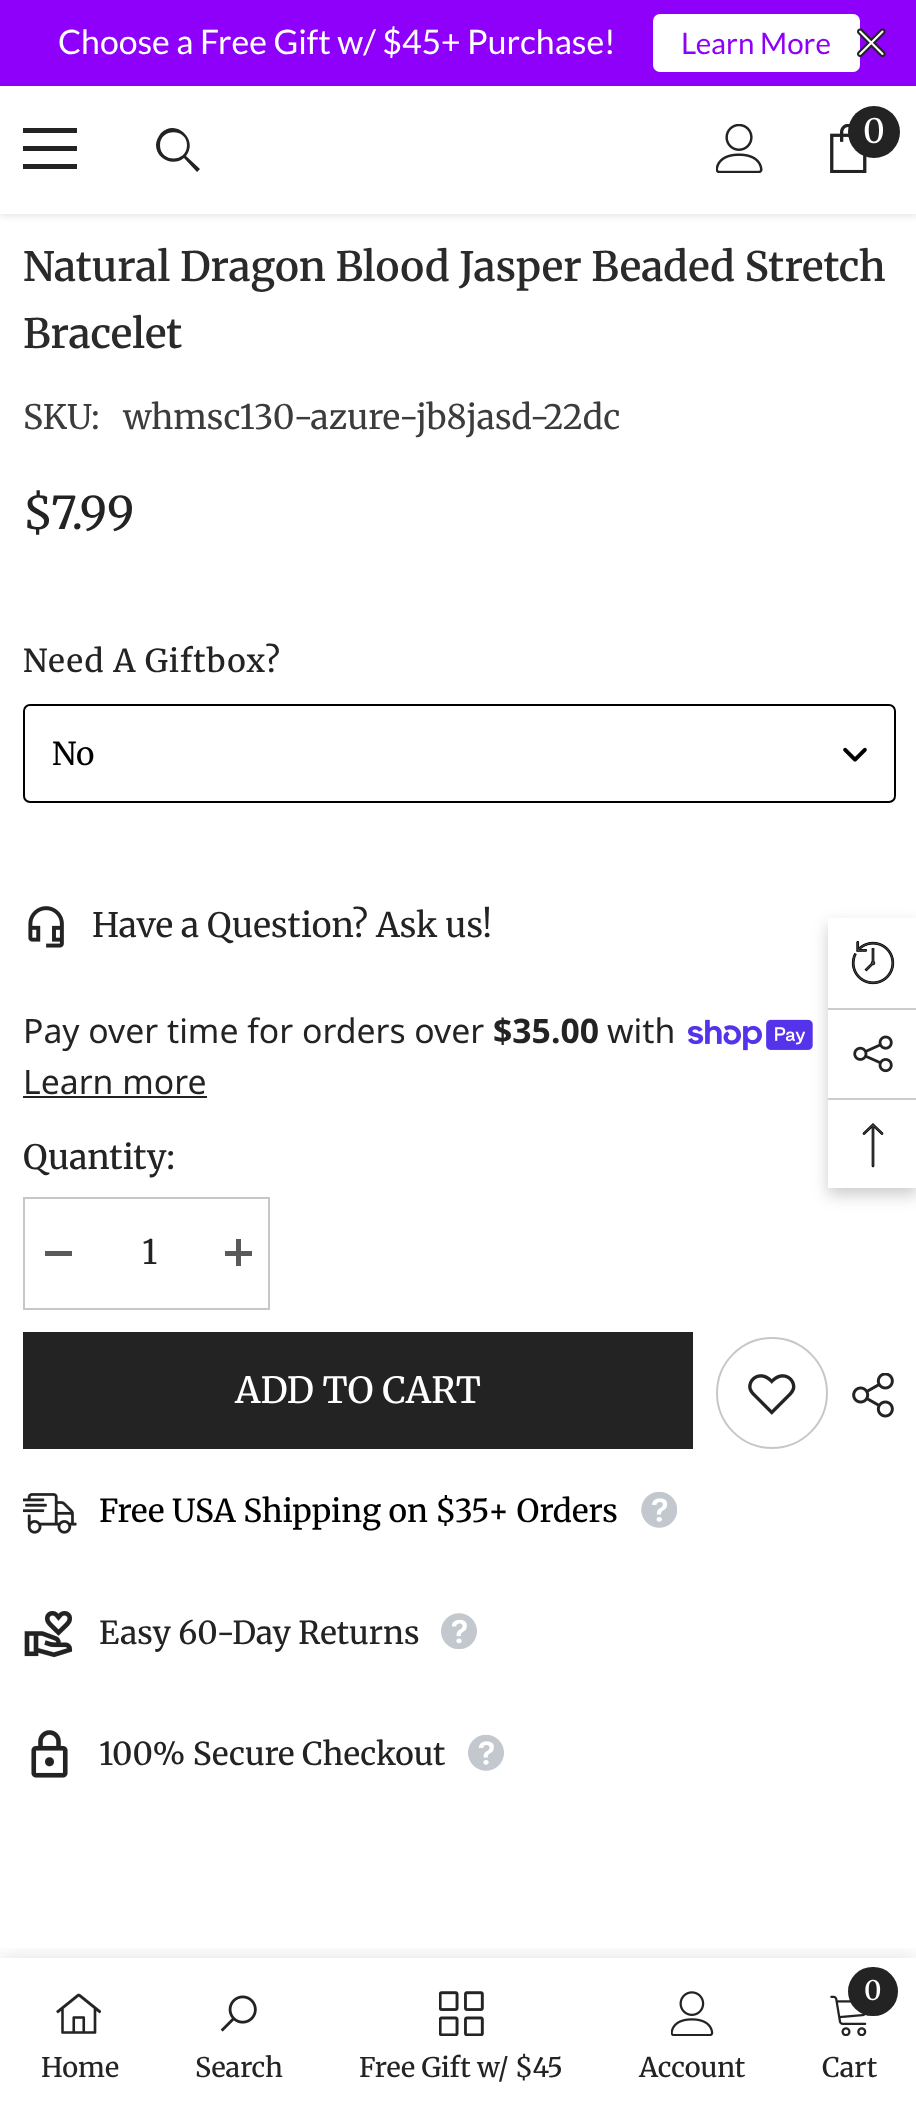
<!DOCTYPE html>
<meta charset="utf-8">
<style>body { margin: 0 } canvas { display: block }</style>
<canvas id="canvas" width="916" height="2106"></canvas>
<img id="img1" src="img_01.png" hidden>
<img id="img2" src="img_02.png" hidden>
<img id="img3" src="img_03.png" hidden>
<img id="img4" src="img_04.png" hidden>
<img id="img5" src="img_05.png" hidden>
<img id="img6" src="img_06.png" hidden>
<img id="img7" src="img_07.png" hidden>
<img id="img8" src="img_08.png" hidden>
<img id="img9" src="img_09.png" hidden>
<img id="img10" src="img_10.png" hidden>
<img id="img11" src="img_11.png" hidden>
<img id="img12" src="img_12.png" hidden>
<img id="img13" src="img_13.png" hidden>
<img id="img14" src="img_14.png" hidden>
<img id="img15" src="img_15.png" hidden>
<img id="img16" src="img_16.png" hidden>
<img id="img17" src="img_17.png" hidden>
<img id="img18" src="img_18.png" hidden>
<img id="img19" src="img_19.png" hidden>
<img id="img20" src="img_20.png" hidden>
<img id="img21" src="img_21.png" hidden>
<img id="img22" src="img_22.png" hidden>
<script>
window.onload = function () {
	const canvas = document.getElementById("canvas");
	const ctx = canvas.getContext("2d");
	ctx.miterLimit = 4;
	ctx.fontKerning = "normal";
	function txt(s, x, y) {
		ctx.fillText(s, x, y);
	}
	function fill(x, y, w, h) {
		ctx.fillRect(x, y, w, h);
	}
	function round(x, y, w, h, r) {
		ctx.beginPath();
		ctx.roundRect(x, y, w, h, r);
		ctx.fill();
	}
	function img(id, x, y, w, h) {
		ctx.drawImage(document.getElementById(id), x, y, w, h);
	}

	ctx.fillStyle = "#FFFFFF";
	fill(0, 0, 916, 2106);
	ctx.fillStyle = "rgba(0, 0, 0, 0.1)";
	ctx.filter = "blur(3.5px)";
	ctx.beginPath();
	ctx.rect(0, 86, 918, 130);
	ctx.fill();
	ctx.filter = "none";
	ctx.fillStyle = "#8F00FA";
	fill(0, 0, 916, 86);
	ctx.fillStyle = "#FFFFFF";
	round(653, 14, 207, 58, 7);
	img("img1", 857, 28, 29, 30);
	fill(0, 86, 916, 128);
	ctx.fillStyle = "#232323";
	fill(23, 146, 54, 5);
	fill(23, 128, 54, 5);
	fill(23, 164, 54, 5);
	ctx.beginPath();
	ctx.moveTo(156, 145);
	ctx.bezierCurveTo(156, 159, 173, 167, 184, 158);
	ctx.lineTo(197, 172);
	ctx.lineTo(200, 169);
	ctx.lineTo(186, 156);
	ctx.bezierCurveTo(199, 140, 176, 118, 161, 133);
	ctx.bezierCurveTo(158, 137, 156, 141, 156, 145);
	ctx.closePath();
	ctx.moveTo(160, 145);
	ctx.bezierCurveTo(160, 128, 187, 128, 187, 145);
	ctx.bezierCurveTo(187, 163, 160, 163, 160, 145);
	ctx.closePath();
	ctx.fill();
	img("img2", 716, 124, 47, 49);
	img("img3", 830, 124, 37, 49);
	ctx.beginPath();
	ctx.arc(874, 132, 26, 0, Math.PI * 2);
	ctx.fill();
	img("img4", 843, 747, 24, 15);
	ctx.beginPath();
	ctx.roundRect(24, 705, 871, 97, 6);
	ctx.strokeStyle = "#000000";
	ctx.lineWidth = 2;
	ctx.stroke();
	img("img5", 28, 906, 36, 42);
	img("img6", 688, 1019, 125, 32);
	fill(23, 1096, 184, 2);
	ctx.strokeStyle = "#C7C7C7";
	ctx.strokeRect(24, 1198, 245, 111);
	ctx.fillStyle = "#5A5A5A";
	fill(45, 1251, 27, 5);
	fill(225, 1251, 27, 5);
	fill(236, 1239, 5, 27);
	ctx.fillStyle = "#232323";
	fill(23, 1332, 670, 117);
	ctx.beginPath();
	ctx.arc(772, 1393, 55, 0, Math.PI * 2);
	ctx.stroke();
	img("img7", 748, 1374, 48, 41);
	img("img8", 852, 1373, 42, 45);
	img("img9", 23, 1493, 54, 41);
	img("img10", 641, 1492, 36, 36);
	img("img11", 24, 1610, 49, 48);
	img("img12", 441, 1613, 36, 36);
	img("img13", 31, 1730, 37, 48);
	img("img14", 468, 1735, 36, 36);
	ctx.save();
	ctx.beginPath();
	ctx.rect(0, 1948, 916, 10);
	ctx.clip();
	ctx.fillStyle = "rgba(0, 0, 0, 0.12)";
	ctx.filter = "blur(10px)";
	ctx.beginPath();
	ctx.rect(0, 1958, 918, 148);
	ctx.fill();
	ctx.filter = "none";
	ctx.restore();
	img("img15", 56, 1993, 45, 41);
	img("img16", 220, 1995, 37, 37);
	img("img17", 439, 1991, 45, 45);
	img("img18", 671, 1991, 43, 45);
	img("img19", 830, 1995, 37, 41);
	round(848, 1967, 50, 49, 24.5);
	ctx.save();
	ctx.beginPath();
	ctx.moveTo(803, 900);
	ctx.lineTo(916, 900);
	ctx.lineTo(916, 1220);
	ctx.lineTo(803, 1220);
	ctx.closePath();
	ctx.moveTo(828, 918);
	ctx.lineTo(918, 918);
	ctx.lineTo(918, 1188);
	ctx.lineTo(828, 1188);
	ctx.closePath();
	ctx.clip("evenodd");
	ctx.fillStyle = "rgba(0, 0, 0, 0.2)";
	ctx.filter = "blur(8px)";
	ctx.beginPath();
	ctx.rect(828, 925, 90, 270);
	ctx.fill();
	ctx.filter = "none";
	ctx.restore();
	img("img20", 851, 941, 44, 44);
	ctx.fillStyle = "#CCCCCC";
	fill(828, 1008, 88, 2);
	img("img21", 853, 1035, 40, 38);
	fill(828, 1098, 88, 2);
	img("img22", 862, 1123, 22, 45);
	ctx.font = "33.75px Lato";
	ctx.fillStyle = "#FFFFFF";
	txt("Choose a Free Gift w/ $45+ Purchase!", 58, 54);
	ctx.font = "29.5px Lato";
	ctx.fillStyle = "#8F00FA";
	txt("Learn More", 681, 54);
	ctx.font = "33.75px Merriweather";
	ctx.fillStyle = "#FFFFFF";
	txt("0", 863, 143);
	ctx.font = "600 40.5px Merriweather";
	ctx.fillStyle = "#2B2A2A";
	txt("Natural Dragon Blood Jasper Beaded Stretch", 23, 281);
	txt("Bracelet", 23, 348);
	ctx.font = "33.75px Merriweather";
	ctx.fillStyle = "#3C3C3C";
	txt("SKU:", 23, 429);
	txt("whmsc130-azure-jb8jasd-22dc", 123, 429);
	ctx.font = "500 45px Merriweather";
	ctx.fillStyle = "#232323";
	txt("$7.99", 23, 529);
	ctx.letterSpacing = "1.1px";
	ctx.font = "500 31.5px Merriweather";
	txt("Need A Giftbox?", 23, 672);
	ctx.letterSpacing = "0px";
	ctx.font = "31.5px Merriweather";
	ctx.fillStyle = "#000000";
	txt("No", 52, 765);
	ctx.font = "33.75px Merriweather";
	ctx.fillStyle = "#232323";
	txt("Have a Question? Ask us!", 92, 937);
	ctx.font = "33.75px Noto Sans";
	txt("Pay over time for orders over", 23, 1043);
	ctx.font = "bold 33.75px Noto Sans";
	txt("$35.00", 493, 1043);
	ctx.font = "33.75px Noto Sans";
	txt("with", 607, 1043);
	txt("Learn more", 23, 1094);
	ctx.font = "500 33.75px Merriweather";
	txt("Quantity:", 23, 1169);
	ctx.font = "33.75px Merriweather";
	txt("1", 142, 1264);
	ctx.font = "500 36px Merriweather";
	ctx.fillStyle = "#FFFFFF";
	txt("ADD TO CART", 235, 1403);
	ctx.font = "500 31.5px Merriweather";
	ctx.fillStyle = "#000000";
	txt("Free USA Shipping on $35+ Orders", 99, 1522);
	ctx.fillStyle = "#232323";
	txt("Easy 60-Day Returns", 99, 1644);
	txt("100% Secure Checkout", 99, 1765);
	ctx.font = "500 27px Merriweather";
	txt("Home", 41, 2077);
	txt("Search", 195, 2077);
	txt("Free Gift w/ $45", 359, 2077);
	txt("Account", 639, 2077);
	ctx.fillStyle = "#FFFFFF";
	txt("0", 864, 2000);
	ctx.fillStyle = "#232323";
	txt("Cart", 822, 2077);
};
</script>
